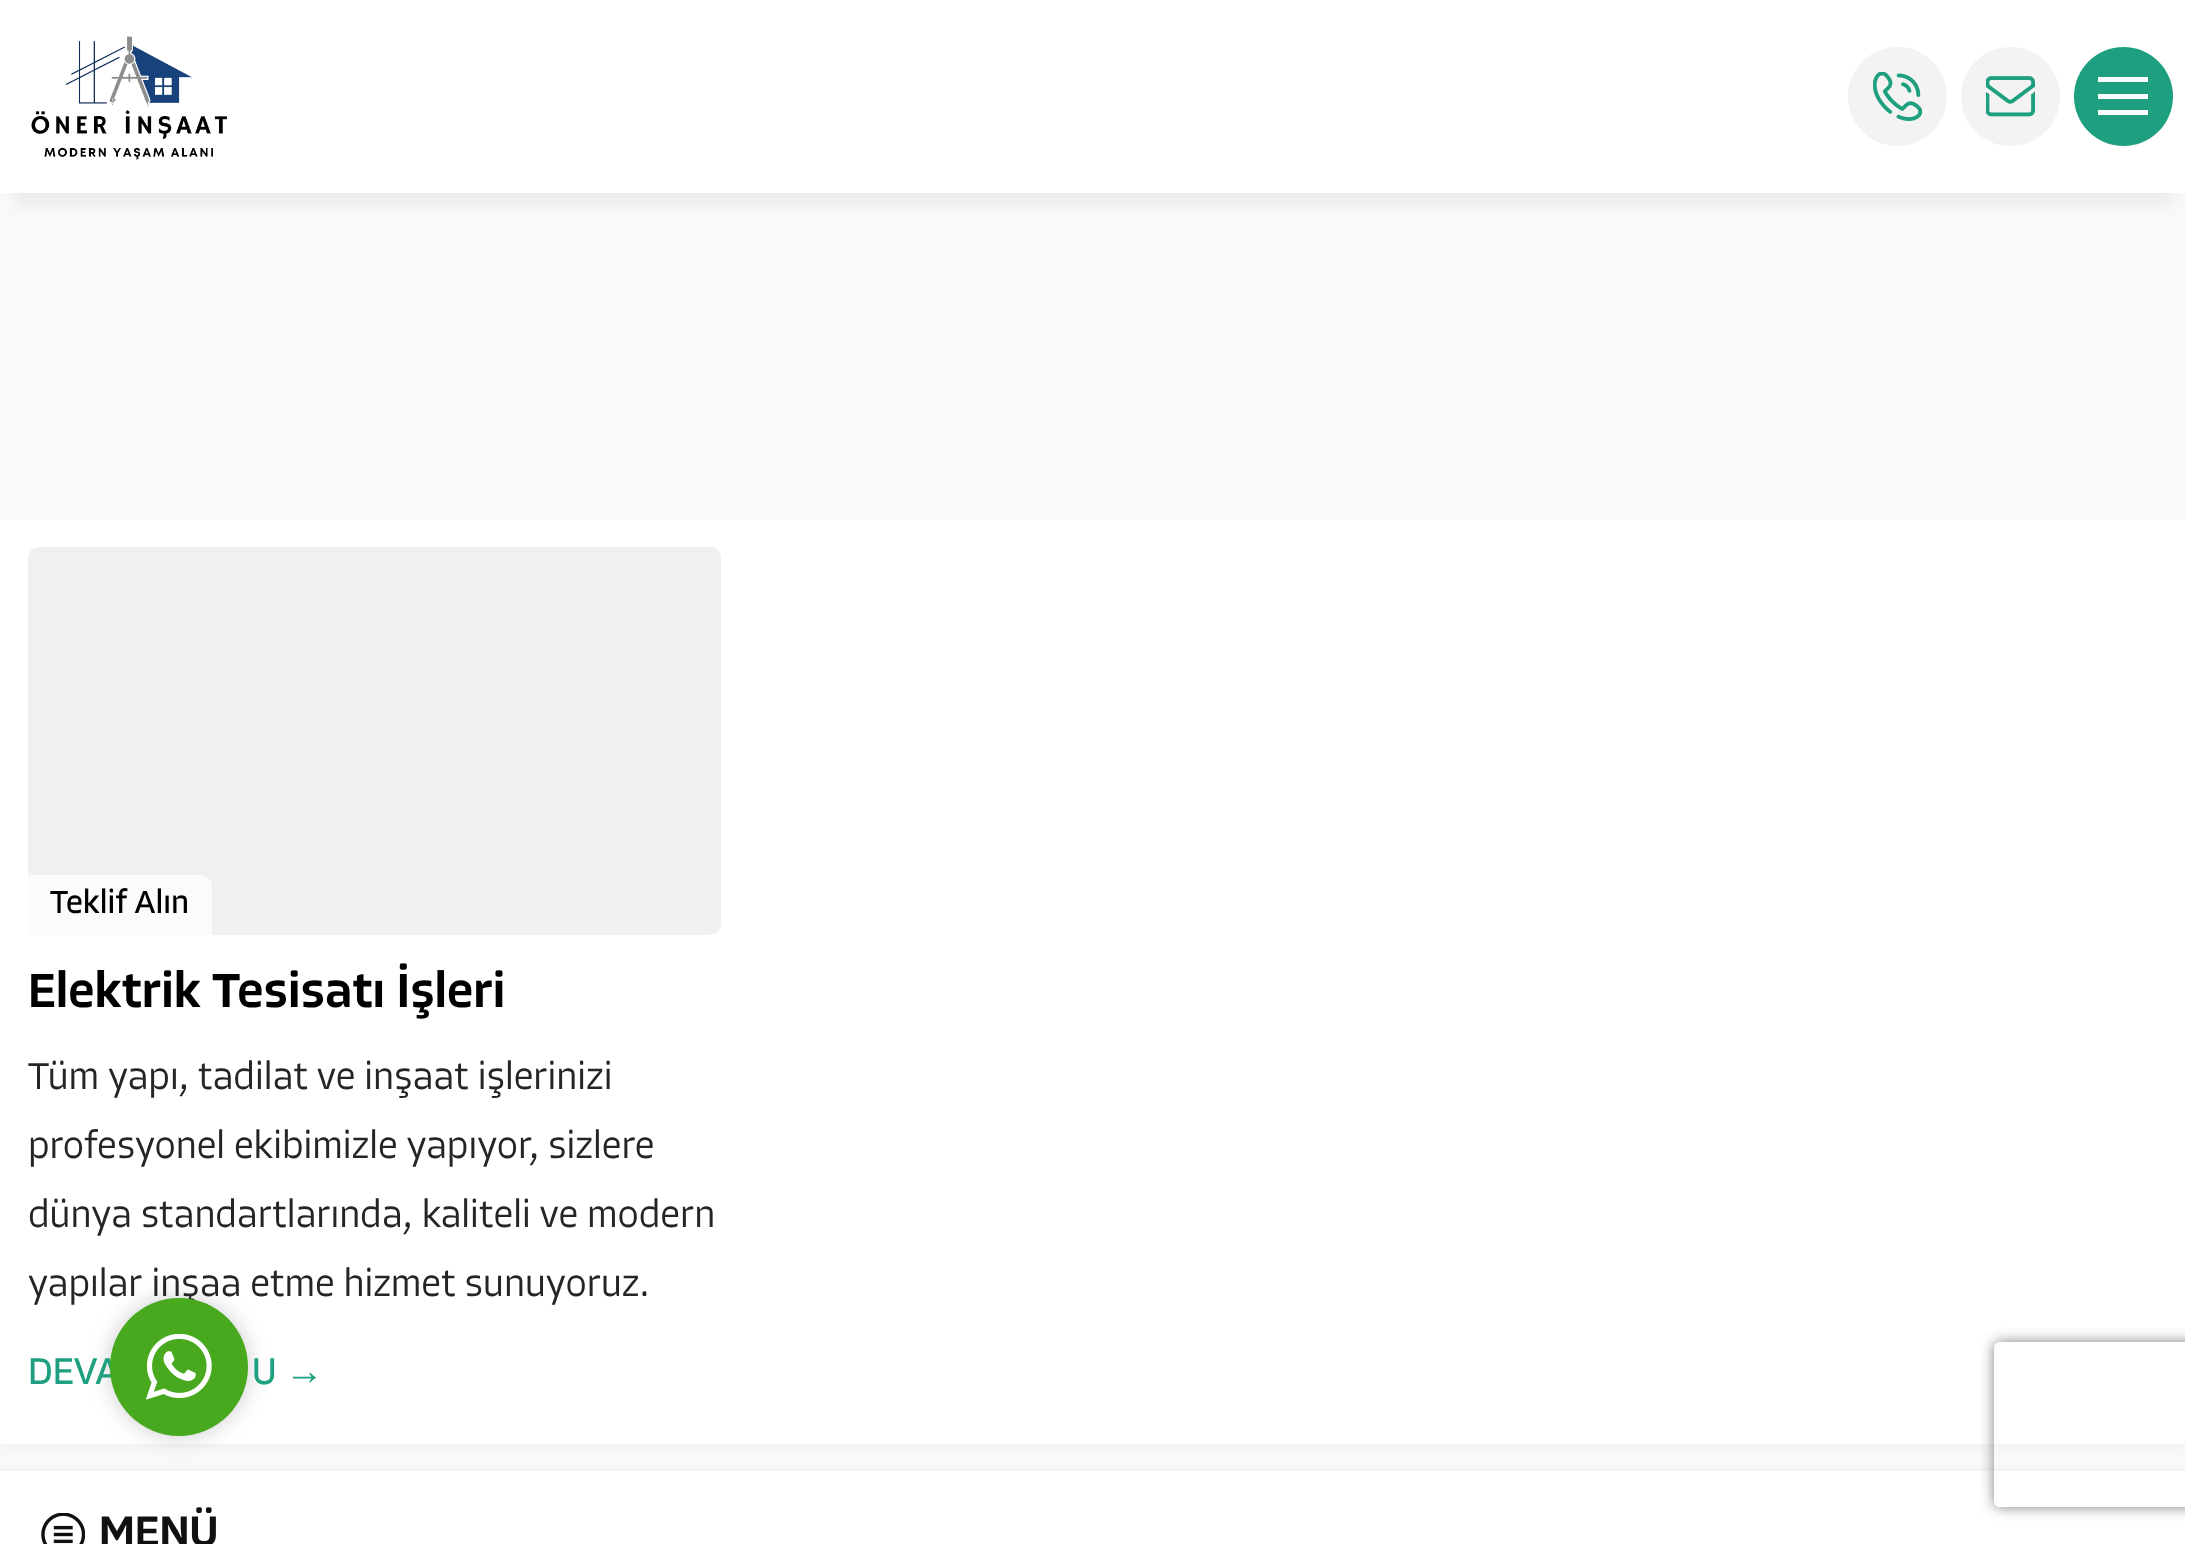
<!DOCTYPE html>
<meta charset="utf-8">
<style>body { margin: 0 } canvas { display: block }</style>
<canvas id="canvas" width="2185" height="1544"></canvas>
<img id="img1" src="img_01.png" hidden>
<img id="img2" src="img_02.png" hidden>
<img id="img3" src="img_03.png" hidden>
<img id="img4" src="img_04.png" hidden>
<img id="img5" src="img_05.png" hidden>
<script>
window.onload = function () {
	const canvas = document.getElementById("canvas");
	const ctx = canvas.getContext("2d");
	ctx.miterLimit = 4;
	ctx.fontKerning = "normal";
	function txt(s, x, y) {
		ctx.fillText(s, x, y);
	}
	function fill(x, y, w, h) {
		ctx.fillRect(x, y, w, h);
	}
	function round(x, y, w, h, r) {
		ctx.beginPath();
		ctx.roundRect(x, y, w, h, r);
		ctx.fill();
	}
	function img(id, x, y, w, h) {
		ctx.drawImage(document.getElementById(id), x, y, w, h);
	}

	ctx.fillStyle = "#F9F9F9";
	fill(0, 0, 2185, 1544);
	ctx.fillStyle = "rgba(0, 0, 0, 0.05)";
	ctx.filter = "blur(7px)";
	ctx.beginPath();
	ctx.rect(14, 41, 2159, 165);
	ctx.fill();
	ctx.filter = "none";
	ctx.fillStyle = "#FFFFFF";
	fill(0, 0, 2185, 193);
	img("img1", 31, 36, 196, 124);
	ctx.fillStyle = "#F3F3F3";
	ctx.beginPath();
	ctx.arc(1897.5, 96.5, 49.5, 0, Math.PI * 2);
	ctx.fill();
	img("img2", 1873, 72, 49, 49);
	ctx.beginPath();
	ctx.arc(2010.5, 96.5, 49.5, 0, Math.PI * 2);
	ctx.fill();
	img("img3", 1986, 76, 49, 41);
	ctx.fillStyle = "#1D9F80";
	ctx.beginPath();
	ctx.arc(2123.5, 96.5, 49.5, 0, Math.PI * 2);
	ctx.fill();
	ctx.fillStyle = "#FFFFFF";
	ctx.beginPath();
	ctx.moveTo(2098, 77);
	ctx.lineTo(2148, 77);
	ctx.lineTo(2148, 82);
	ctx.lineTo(2098, 82);
	ctx.closePath();
	ctx.moveTo(2098, 110);
	ctx.lineTo(2148, 110);
	ctx.lineTo(2148, 115);
	ctx.lineTo(2098, 115);
	ctx.closePath();
	ctx.moveTo(2098, 94);
	ctx.lineTo(2148, 94);
	ctx.lineTo(2148, 99);
	ctx.lineTo(2098, 99);
	ctx.closePath();
	ctx.fill();
	ctx.save();
	ctx.beginPath();
	ctx.rect(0, 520, 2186, 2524);
	ctx.clip();
	ctx.fillStyle = "rgba(0, 0, 0, 0.05)";
	ctx.filter = "blur(7px)";
	ctx.beginPath();
	ctx.rect(0, 520, 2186, 924);
	ctx.fill();
	ctx.filter = "none";
	ctx.restore();
	fill(0, 520, 2185, 924);
	ctx.fillStyle = "#F0F0F0";
	round(28, 547, 693, 388, 11);
	ctx.fillStyle = "rgba(255, 255, 255, 0.7)";
	ctx.beginPath();
	ctx.roundRect(28, 875, 184, 60, [0, 11, 0, 11]);
	ctx.fill();
	ctx.fillStyle = "rgba(0, 0, 0, 0.05)";
	ctx.filter = "blur(7px)";
	ctx.beginPath();
	ctx.rect(0, 1471, 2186, 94);
	ctx.fill();
	ctx.filter = "none";
	ctx.fillStyle = "#FFFFFF";
	fill(0, 1471, 2185, 73);
	img("img4", 41, 1513, 44, 31);
	ctx.fillStyle = "rgba(0, 0, 0, 0.2)";
	ctx.filter = "blur(11px)";
	ctx.beginPath();
	ctx.roundRect(110, 1298, 138, 138, 69);
	ctx.fill();
	ctx.filter = "none";
	ctx.save();
	ctx.beginPath();
	ctx.moveTo(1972, 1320);
	ctx.lineTo(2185, 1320);
	ctx.lineTo(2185, 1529);
	ctx.lineTo(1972, 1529);
	ctx.closePath();
	ctx.moveTo(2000, 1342);
	ctx.lineTo(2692, 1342);
	ctx.bezierCurveTo(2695.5, 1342, 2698, 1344.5, 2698, 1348);
	ctx.lineTo(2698, 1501);
	ctx.bezierCurveTo(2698, 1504.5, 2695.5, 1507, 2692, 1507);
	ctx.lineTo(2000, 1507);
	ctx.bezierCurveTo(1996.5, 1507, 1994, 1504.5, 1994, 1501);
	ctx.lineTo(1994, 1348);
	ctx.bezierCurveTo(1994, 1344.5, 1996.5, 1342, 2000, 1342);
	ctx.closePath();
	ctx.clip("evenodd");
	ctx.fillStyle = "#808080";
	ctx.filter = "blur(7px)";
	ctx.beginPath();
	ctx.roundRect(1994, 1342, 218, 165, 6);
	ctx.fill();
	ctx.filter = "none";
	ctx.restore();
	ctx.font = "33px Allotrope";
	ctx.fillStyle = "#000000";
	txt("Teklif Alın", 50, 913);
	ctx.font = "500 49.5px Allotrope";
	txt("Elektrik Tesisatı İşleri", 28, 1007);
	ctx.save();
	ctx.beginPath();
	ctx.rect(28, 963, 693, 357);
	ctx.clip();
	ctx.font = "300 38.5px Allotrope";
	ctx.fillStyle = "#252525";
	txt("Tüm yapı, tadilat ve inşaat işlerinizi", 28, 1089);
	ctx.restore();
	ctx.font = "300 38.5px Allotrope";
	ctx.fillStyle = "#252525";
	txt("profesyonel ekibimizle yapıyor, sizlere", 28, 1158);
	txt("dünya standartlarında, kaliteli ve modern", 28, 1227);
	txt("yapılar inşaa etme hizmet sunuyoruz.", 28, 1296);
	ctx.font = "38.5px Allotrope";
	ctx.fillStyle = "#1D9F80";
	txt("DEVA", 28, 1384);
	txt("U", 252, 1384);
	ctx.font = "38.5px Liberation Sans";
	txt("→", 285, 1384);
	ctx.font = "500 44px Allotrope";
	ctx.fillStyle = "#111111";
	txt("MENÜ", 99, 1546);
	ctx.fillStyle = "#48A91F";
	ctx.beginPath();
	ctx.arc(179, 1367, 69, 0, Math.PI * 2);
	ctx.fill();
	img("img5", 146, 1334, 66, 66);
};
</script>
